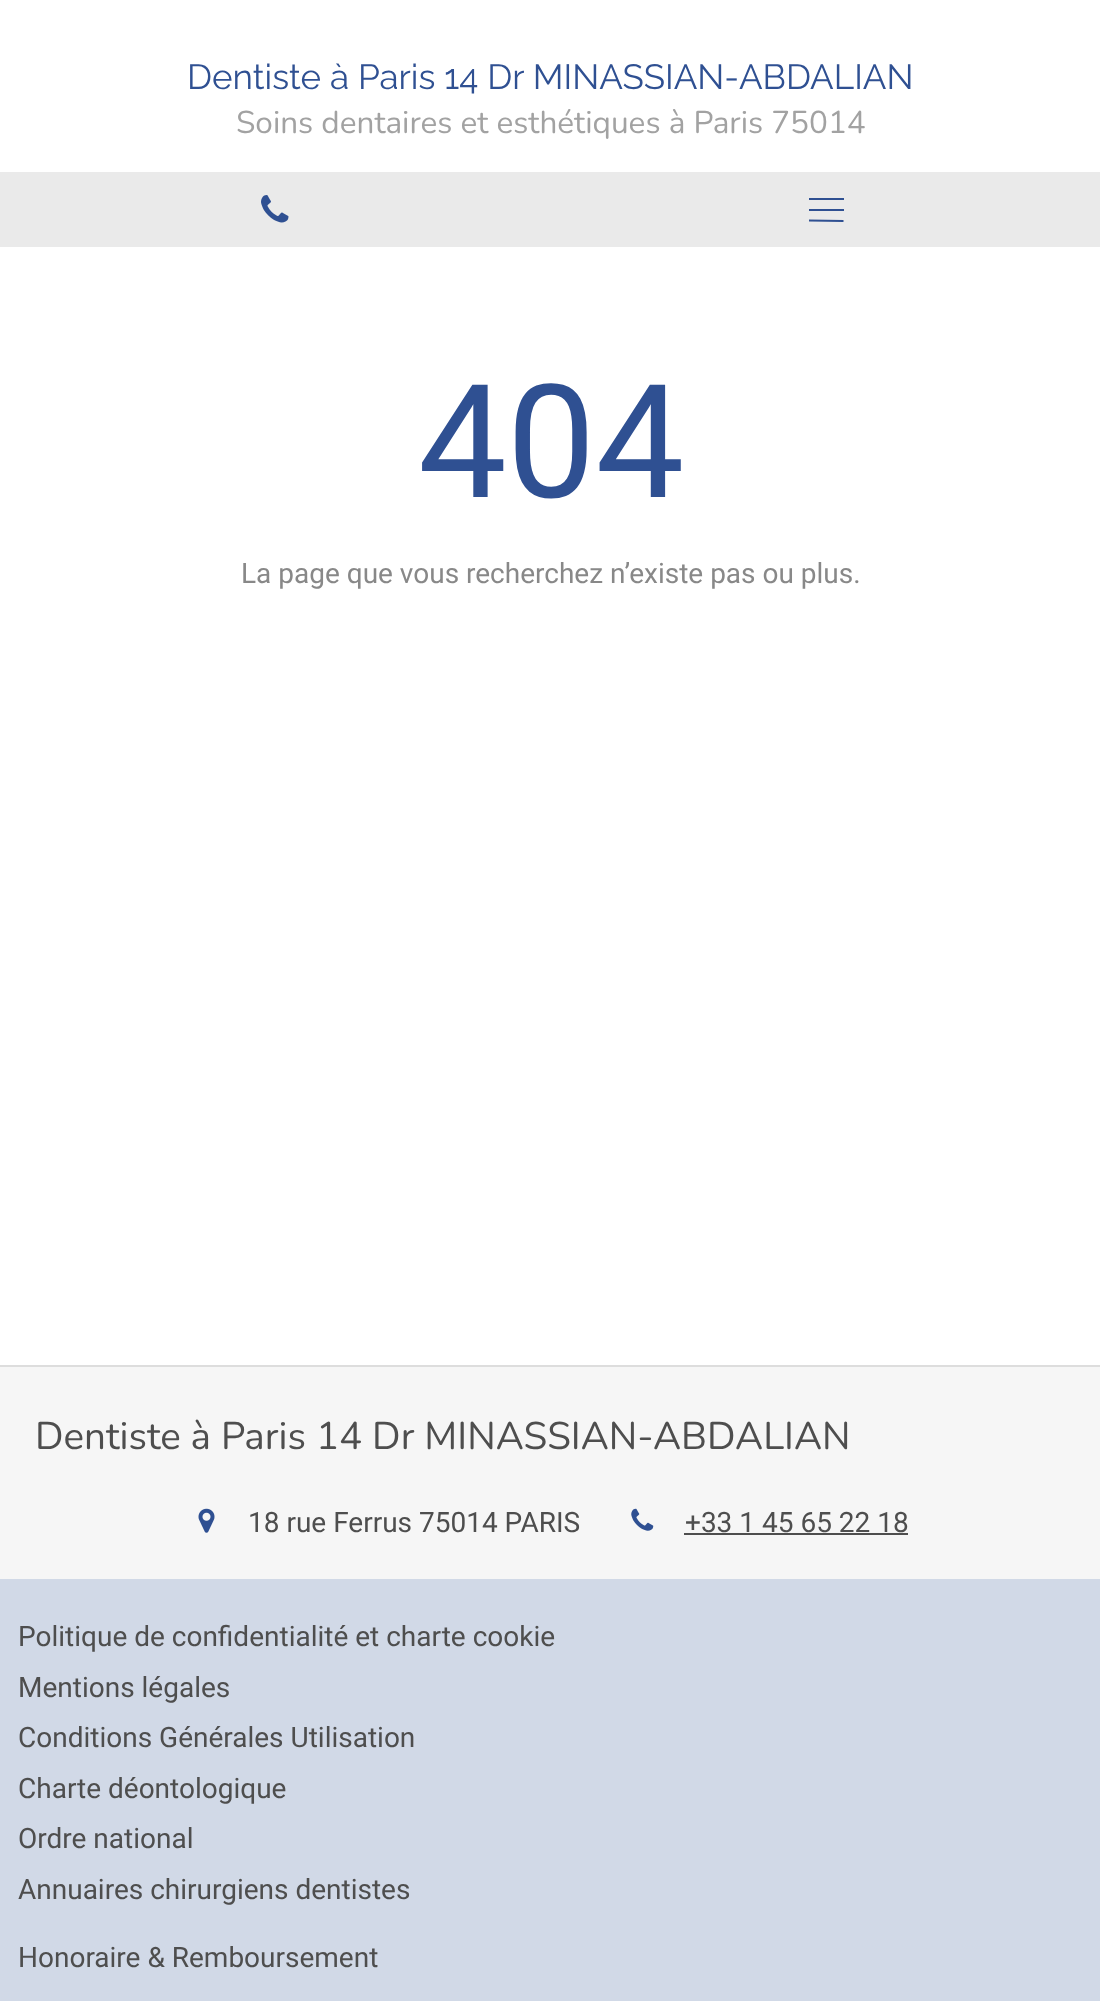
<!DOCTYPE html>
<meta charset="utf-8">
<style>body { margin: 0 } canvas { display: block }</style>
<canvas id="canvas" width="1100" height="2001"></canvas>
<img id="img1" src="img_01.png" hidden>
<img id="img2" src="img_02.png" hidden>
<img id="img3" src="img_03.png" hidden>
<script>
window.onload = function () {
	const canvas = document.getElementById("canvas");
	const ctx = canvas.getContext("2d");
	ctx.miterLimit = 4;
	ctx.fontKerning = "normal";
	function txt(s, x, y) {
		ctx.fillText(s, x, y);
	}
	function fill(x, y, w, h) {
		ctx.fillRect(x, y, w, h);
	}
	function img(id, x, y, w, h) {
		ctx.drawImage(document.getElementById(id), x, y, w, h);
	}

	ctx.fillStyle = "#FFFFFF";
	fill(0, 0, 1100, 2001);
	ctx.fillStyle = "#EAEAEA";
	fill(0, 172, 1100, 75);
	img("img1", 261, 195, 28, 28);
	ctx.fillStyle = "#2F5092";
	fill(809, 198, 35, 2);
	fill(809, 209, 35, 2);
	ctx.save();
	ctx.beginPath();
	ctx.rect(809, 193, 35, 35);
	ctx.clip();
	ctx.beginPath();
	ctx.moveTo(808.5, 220.5);
	ctx.lineTo(843.5, 221);
	ctx.strokeStyle = "#2F5092";
	ctx.lineWidth = 2.1;
	ctx.stroke();
	ctx.restore();
	ctx.fillStyle = "#DDDDDD";
	fill(0, 1365, 1100, 2);
	ctx.fillStyle = "#F6F6F6";
	fill(0, 1367, 1100, 212);
	img("img2", 198, 1508, 17, 25);
	img("img3", 631, 1508, 23, 23);
	ctx.fillStyle = "#4E4E4E";
	fill(684, 1533, 224, 2);
	ctx.fillStyle = "#D1D9E7";
	fill(0, 1579, 1100, 422);
	ctx.font = "35px Raleway";
	ctx.fillStyle = "#2F5092";
	txt("Dentiste à Paris 14 Dr MINASSIAN-ABDALIAN", 187, 89);
	ctx.font = "31.5px Nunito";
	ctx.fillStyle = "#A2A2A2";
	txt("Soins dentaires et esthétiques à Paris 75014", 236, 133);
	ctx.font = "158px Roboto";
	ctx.fillStyle = "#2F5092";
	txt("404", 418, 497);
	ctx.font = "28px Roboto";
	ctx.fillStyle = "#888888";
	txt("La page que vous recherchez n’existe pas ou plus.", 241, 583);
	ctx.font = "38.5px Nunito";
	ctx.fillStyle = "#4E4E4E";
	txt("Dentiste à Paris 14 Dr MINASSIAN-ABDALIAN", 35, 1449);
	ctx.font = "28px Roboto";
	txt("18 rue Ferrus 75014 PARIS", 248, 1532);
	txt("+33 1 45 65 22 18", 685, 1532);
	txt("Politique de confidentialité et charte cookie", 18, 1646);
	txt("Mentions légales", 18, 1697);
	txt("Conditions Générales Utilisation", 18, 1747);
	txt("Charte déontologique", 18, 1798);
	txt("Ordre national", 18, 1848);
	txt("Annuaires chirurgiens dentistes", 18, 1899);
	txt("Honoraire & Remboursement", 18, 1967);
};
</script>
